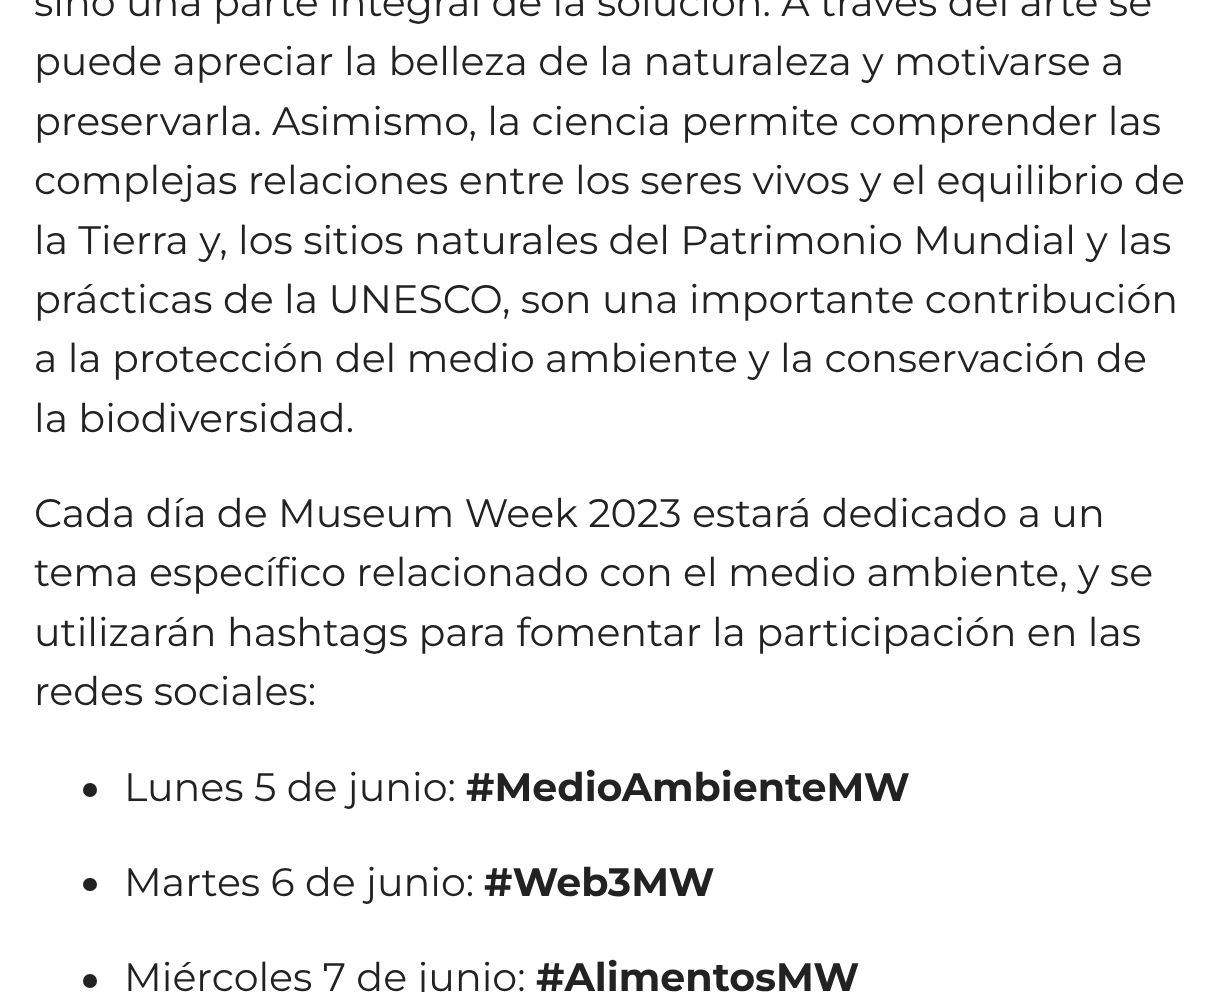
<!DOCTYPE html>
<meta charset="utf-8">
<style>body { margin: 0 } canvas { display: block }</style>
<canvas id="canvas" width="1221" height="992"></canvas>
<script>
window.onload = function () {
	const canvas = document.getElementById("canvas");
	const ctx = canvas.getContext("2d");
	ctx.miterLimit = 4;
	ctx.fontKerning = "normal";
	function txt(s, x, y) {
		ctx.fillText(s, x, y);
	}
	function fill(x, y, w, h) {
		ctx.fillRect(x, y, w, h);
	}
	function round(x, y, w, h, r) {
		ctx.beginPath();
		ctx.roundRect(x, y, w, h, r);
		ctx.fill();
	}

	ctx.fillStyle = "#FFFFFF";
	fill(0, 0, 1221, 992);
	ctx.fillStyle = "#222222";
	ctx.beginPath();
	ctx.arc(90, 790, 7, 0, Math.PI * 2);
	ctx.fill();
	round(83, 878, 14, 13, 6.5);
	ctx.beginPath();
	ctx.arc(90, 981, 7, 0, Math.PI * 2);
	ctx.fill();
	ctx.font = "39.6px Montserrat";
	txt("sino una parte integral de la solución. A través del arte se", 34, 16);
	txt("puede apreciar la belleza de la naturaleza y motivarse a", 34, 75);
	txt("preservarla. Asimismo, la ciencia permite comprender las", 34, 135);
	txt("complejas relaciones entre los seres vivos y el equilibrio de", 34, 194);
	txt("la Tierra y, los sitios naturales del Patrimonio Mundial y las", 34, 254);
	txt("prácticas de la UNESCO, son una importante contribución", 34, 313);
	txt("a la protección del medio ambiente y la conservación de", 34, 372);
	txt("la biodiversidad.", 34, 432);
	txt("Cada día de Museum Week 2023 estará dedicado a un", 34, 527);
	txt("tema específico relacionado con el medio ambiente, y se", 34, 586);
	txt("utilizarán hashtags para fomentar la participación en las", 34, 646);
	txt("redes sociales:", 34, 705);
	txt("Lunes 5 de junio:", 124, 801);
	ctx.font = "bold 39.6px Montserrat";
	txt("#MedioAmbienteMW", 466, 801);
	ctx.font = "39.6px Montserrat";
	txt("Martes 6 de junio:", 124, 896);
	ctx.font = "bold 39.6px Montserrat";
	txt("#Web3MW", 484, 896);
	ctx.font = "39.6px Montserrat";
	txt("Miércoles 7 de junio:", 124, 991);
	ctx.font = "bold 39.6px Montserrat";
	txt("#AlimentosMW", 536, 991);
};
</script>
